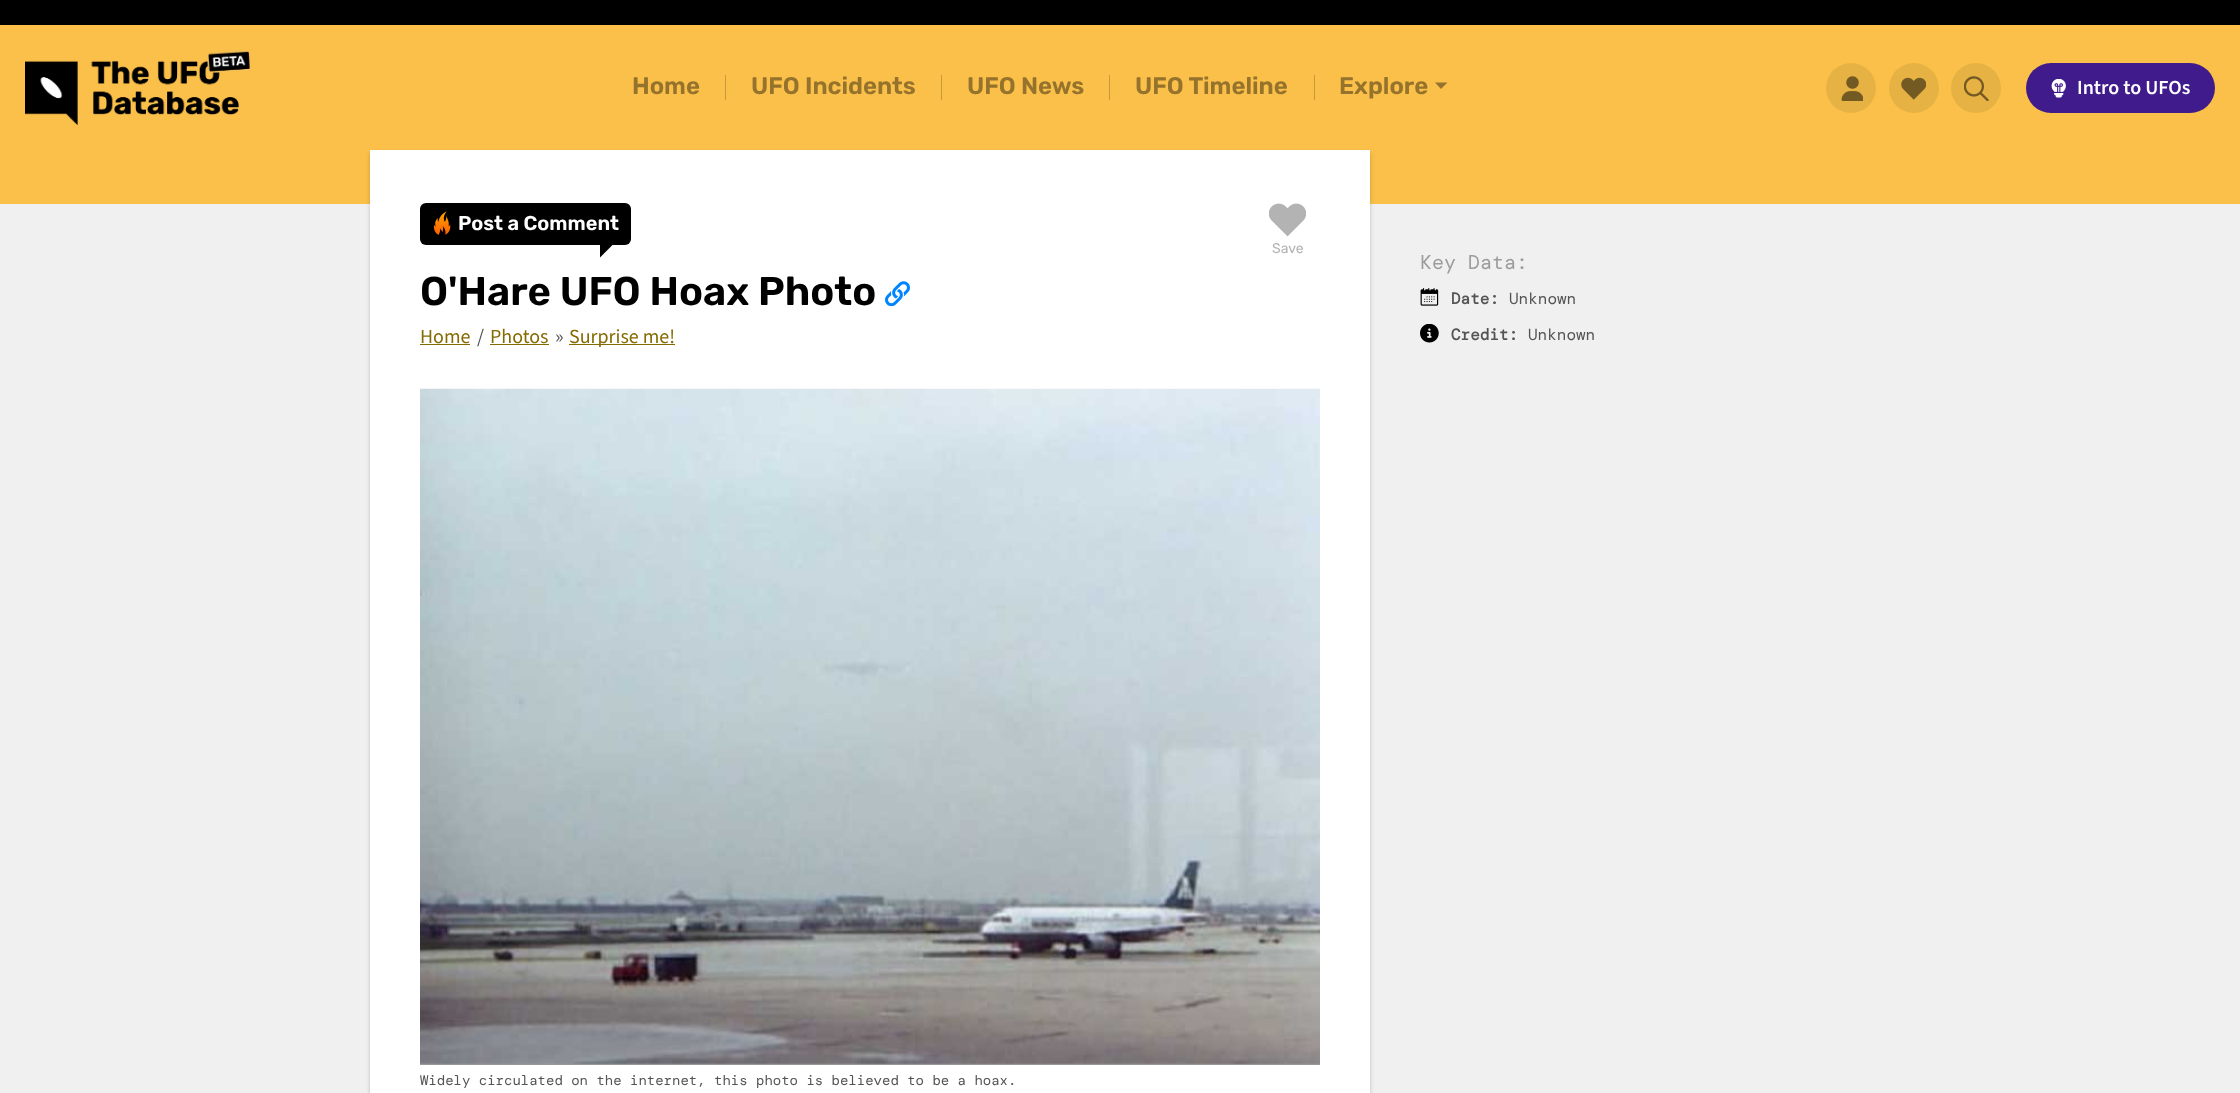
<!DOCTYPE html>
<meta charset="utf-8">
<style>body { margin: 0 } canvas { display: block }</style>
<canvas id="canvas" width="2240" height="1093"></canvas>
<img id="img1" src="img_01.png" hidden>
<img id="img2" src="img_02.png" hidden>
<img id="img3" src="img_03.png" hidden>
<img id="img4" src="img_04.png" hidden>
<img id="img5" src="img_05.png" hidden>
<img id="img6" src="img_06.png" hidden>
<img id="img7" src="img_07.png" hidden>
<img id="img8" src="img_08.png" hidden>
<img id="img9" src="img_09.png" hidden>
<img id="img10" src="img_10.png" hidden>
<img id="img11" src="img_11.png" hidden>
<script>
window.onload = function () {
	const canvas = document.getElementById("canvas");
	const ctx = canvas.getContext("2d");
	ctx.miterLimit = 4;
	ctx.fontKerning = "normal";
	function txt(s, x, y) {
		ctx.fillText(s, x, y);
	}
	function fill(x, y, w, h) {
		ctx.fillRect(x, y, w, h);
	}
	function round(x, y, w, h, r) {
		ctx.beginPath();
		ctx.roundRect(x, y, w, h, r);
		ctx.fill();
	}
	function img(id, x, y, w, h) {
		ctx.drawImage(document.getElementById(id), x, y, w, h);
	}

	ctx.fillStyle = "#F0F0F0";
	fill(0, 0, 2240, 1093);
	ctx.fillStyle = "#000000";
	fill(0, 0, 2240, 25);
	ctx.fillStyle = "#FAC04A";
	fill(0, 25, 2240, 179);
	img("img1", 25, 50, 226, 75);
	ctx.fillStyle = "#C89A3B";
	fill(725, 75, 1, 25);
	fill(941, 75, 1, 25);
	fill(1109, 75, 1, 25);
	fill(1314, 75, 1, 25);
	ctx.fillStyle = "#96732C";
	ctx.beginPath();
	ctx.moveTo(1435, 82.5);
	ctx.lineTo(1447.5, 82.5);
	ctx.lineTo(1441, 89);
	ctx.closePath();
	ctx.fill();
	ctx.fillStyle = "#E7B244";
	ctx.beginPath();
	ctx.arc(1851, 88, 25, 0, Math.PI * 2);
	ctx.fill();
	img("img2", 1841, 76, 22, 25);
	ctx.beginPath();
	ctx.arc(1914, 88, 25, 0, Math.PI * 2);
	ctx.fill();
	img("img3", 1901, 77, 25, 23);
	ctx.beginPath();
	ctx.arc(1976, 88, 25, 0, Math.PI * 2);
	ctx.fill();
	img("img4", 1964, 76, 25, 25);
	ctx.fillStyle = "#3F1B8B";
	round(2026, 63, 189, 50, 25);
	img("img5", 2051, 79, 15, 19);
	ctx.fillStyle = "rgba(0, 0, 0, 0.2)";
	ctx.filter = "blur(2px)";
	ctx.beginPath();
	ctx.rect(370, 153, 1000, 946);
	ctx.fill();
	ctx.filter = "none";
	ctx.fillStyle = "#FFFFFF";
	fill(370, 150, 1000, 943);
	ctx.fillStyle = "#000000";
	round(420, 203, 211, 42, 6);
	img("img6", 433, 211, 18, 24);
	ctx.beginPath();
	ctx.moveTo(600, 245);
	ctx.lineTo(612.5, 245);
	ctx.lineTo(600, 257.5);
	ctx.closePath();
	ctx.fill();
	img("img7", 1269, 203, 37, 34);
	img("img8", 885, 281, 25, 25);
	ctx.fillStyle = "#846A00";
	fill(420, 344, 50, 1);
	fill(490, 344, 59, 1);
	fill(569, 344, 106, 1);
	ctx.fillStyle = "rgba(0, 0, 0, 0.4)";
	ctx.filter = "blur(0.5px)";
	ctx.beginPath();
	ctx.rect(420, 390, 900, 675);
	ctx.fill();
	ctx.filter = "none";
	img("img9", 420, 388, 900, 676);
	img("img10", 1420, 288, 19, 18);
	img("img11", 1420, 324, 19, 19);
	ctx.font = "600 24px Rubik";
	ctx.fillStyle = "#96732C";
	txt("Home", 632, 94);
	txt("UFO Incidents", 751, 94);
	txt("UFO News", 967, 94);
	txt("UFO Timeline", 1135, 94);
	txt("Explore", 1339, 94);
	ctx.font = "600 20px 'Source Sans 3'";
	ctx.fillStyle = "#FFFFFF";
	txt("Intro to UFOs", 2077, 94);
	ctx.font = "600 20px Rubik";
	txt("Post a Comment", 458, 230);
	ctx.font = "14px Rubik";
	ctx.fillStyle = "#B3B3B3";
	txt("Save", 1272, 253);
	ctx.font = "600 40px Rubik";
	ctx.fillStyle = "#000000";
	txt("O'Hare UFO Hoax Photo", 420, 305);
	ctx.font = "20px 'Source Sans 3'";
	ctx.fillStyle = "#846A00";
	txt("Home", 420, 343);
	ctx.fillStyle = "#545454";
	txt("/", 477, 343);
	ctx.fillStyle = "#846A00";
	txt("Photos", 490, 343);
	ctx.fillStyle = "#545454";
	txt("»", 555, 343);
	ctx.fillStyle = "#846A00";
	txt("Surprise me!", 569, 343);
	ctx.font = "14px DM Mono";
	ctx.fillStyle = "#545454";
	txt("Widely circulated on the internet, this photo is believed to be a hoax.", 420, 1085);
	ctx.font = "20px DM Mono";
	ctx.fillStyle = "#9C9C9C";
	txt("Key Data:", 1420, 269);
	ctx.font = "bold 16px DM Mono";
	ctx.fillStyle = "#545454";
	txt("Date:", 1451, 304);
	ctx.font = "16px DM Mono";
	txt("Unknown", 1509, 304);
	ctx.font = "bold 16px DM Mono";
	txt("Credit:", 1451, 340);
	ctx.font = "16px DM Mono";
	txt("Unknown", 1528, 340);
};
</script>
